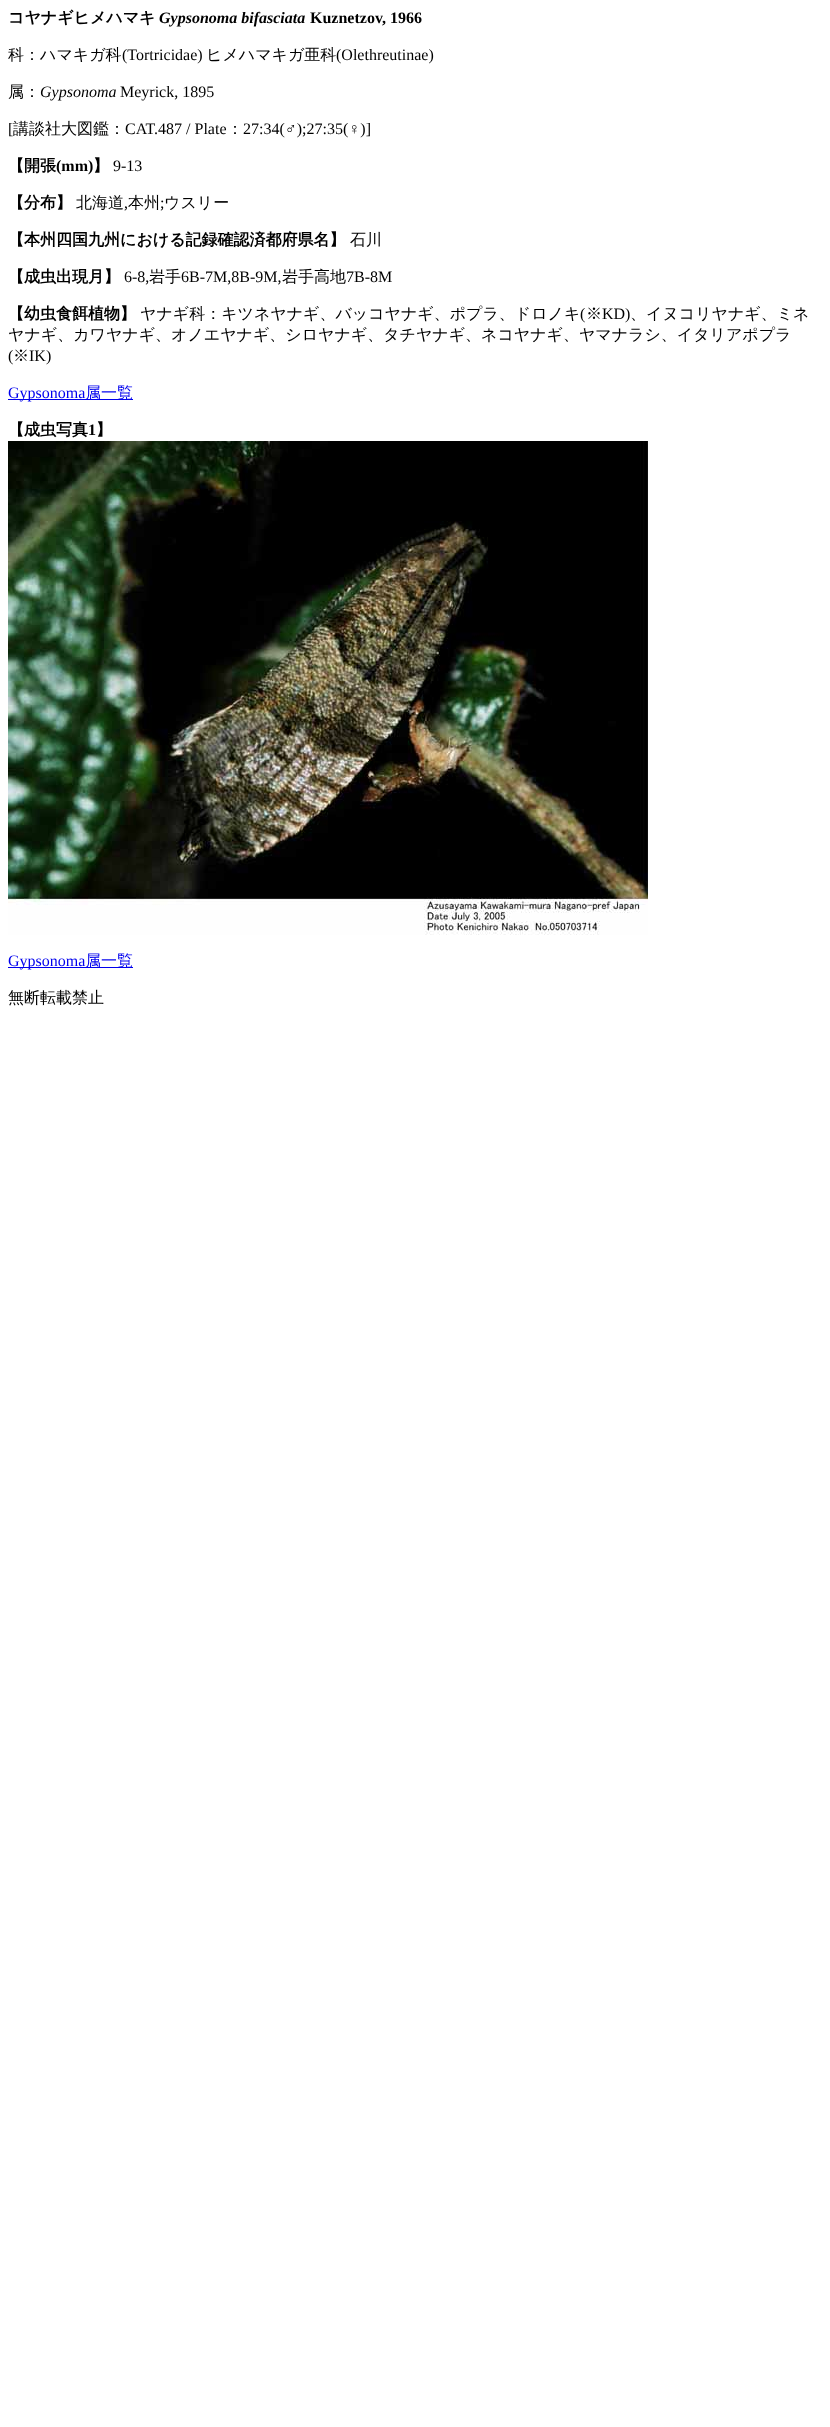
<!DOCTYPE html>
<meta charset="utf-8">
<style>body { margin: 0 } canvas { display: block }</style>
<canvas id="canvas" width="830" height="2427"></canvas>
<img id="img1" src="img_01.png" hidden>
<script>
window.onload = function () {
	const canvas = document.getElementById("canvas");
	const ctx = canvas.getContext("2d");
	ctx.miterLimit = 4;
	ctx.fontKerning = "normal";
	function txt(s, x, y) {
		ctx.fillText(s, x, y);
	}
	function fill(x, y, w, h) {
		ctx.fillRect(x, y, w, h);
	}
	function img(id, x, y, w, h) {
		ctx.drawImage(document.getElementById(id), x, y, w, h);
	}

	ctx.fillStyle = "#FFFFFF";
	fill(0, 0, 830, 2427);
	ctx.fillStyle = "#0000EE";
	fill(8, 399, 125, 1);
	img("img1", 8, 441, 640, 494);
	fill(8, 967, 125, 1);
	ctx.font = "bold 16px WenQuanYi Zen Hei";
	ctx.fillStyle = "#000000";
	txt("コヤナギヒメハマキ", 8, 23);
	ctx.font = "italic bold 16px Liberation Serif";
	txt("Gypsonoma bifasciata", 159, 23);
	ctx.font = "bold 16px Liberation Serif";
	txt("Kuznetzov, 1966", 310, 23);
	ctx.font = "500 16px WenQuanYi Zen Hei";
	txt("科：ハマキガ科", 8, 60);
	ctx.font = "16px Liberation Serif";
	txt("(Tortricidae)", 122, 60);
	ctx.font = "500 16px WenQuanYi Zen Hei";
	txt("ヒメハマキガ亜科", 206, 60);
	ctx.font = "16px Liberation Serif";
	txt("(Olethreutinae)", 336, 60);
	ctx.font = "500 16px WenQuanYi Zen Hei";
	txt("属：", 8, 97);
	ctx.font = "italic 16px Liberation Serif";
	txt("Gypsonoma", 40, 97);
	ctx.font = "16px Liberation Serif";
	txt("Meyrick, 1895", 120, 97);
	txt("[", 8, 134);
	ctx.font = "500 16px WenQuanYi Zen Hei";
	txt("講談社大図鑑：", 13, 134);
	ctx.font = "16px Liberation Serif";
	txt("CAT.487 / Plate", 125, 134);
	ctx.font = "500 16px WenQuanYi Zen Hei";
	txt("：", 227, 134);
	ctx.font = "16px Liberation Serif";
	txt("27:34(♂);27:35(♀)]", 243, 134);
	ctx.font = "bold 16px WenQuanYi Zen Hei";
	txt("【開張", 8, 171);
	ctx.font = "bold 16px Liberation Serif";
	txt("(mm)", 56, 171);
	ctx.font = "bold 16px WenQuanYi Zen Hei";
	txt("】", 93, 171);
	ctx.font = "16px Liberation Serif";
	txt("9-13", 113, 171);
	ctx.font = "bold 16px WenQuanYi Zen Hei";
	txt("【分布】", 8, 208);
	ctx.font = "500 16px WenQuanYi Zen Hei";
	txt("北海道", 76, 208);
	ctx.font = "16px Liberation Serif";
	txt(",", 124, 208);
	ctx.font = "500 16px WenQuanYi Zen Hei";
	txt("本州", 128, 208);
	ctx.font = "16px Liberation Serif";
	txt(";", 160, 208);
	ctx.font = "500 16px WenQuanYi Zen Hei";
	txt("ウスリー", 164, 208);
	ctx.font = "bold 16px WenQuanYi Zen Hei";
	txt("【本州四国九州における記録確認済都府県名】", 8, 245);
	ctx.font = "500 16px WenQuanYi Zen Hei";
	txt("石川", 350, 245);
	ctx.font = "bold 16px WenQuanYi Zen Hei";
	txt("【成虫出現月】", 8, 282);
	ctx.font = "16px Liberation Serif";
	txt("6-8,", 124, 282);
	ctx.font = "500 16px WenQuanYi Zen Hei";
	txt("岩手", 149, 282);
	ctx.font = "16px Liberation Serif";
	txt("6B-7M,8B-9M,", 181, 282);
	ctx.font = "500 16px WenQuanYi Zen Hei";
	txt("岩手高地", 282, 282);
	ctx.font = "16px Liberation Serif";
	txt("7B-8M", 346, 282);
	ctx.font = "bold 16px WenQuanYi Zen Hei";
	txt("【幼虫食餌植物】", 8, 319);
	ctx.font = "500 16px WenQuanYi Zen Hei";
	txt("ヤナギ科：キツネヤナギ、バッコヤナギ、ポプラ、ドロノキ", 140, 319);
	ctx.font = "16px Liberation Serif";
	txt("(", 580, 319);
	ctx.font = "500 16px WenQuanYi Zen Hei";
	txt("※", 586, 319);
	ctx.font = "16px Liberation Serif";
	txt("KD)", 602, 319);
	ctx.font = "500 16px WenQuanYi Zen Hei";
	txt("、イヌコリヤナギ、ミネ", 630, 319);
	txt("ヤナギ、カワヤナギ、オノエヤナギ、シロヤナギ、タチヤナギ、ネコヤナギ、ヤマナラシ、イタリアポプラ", 8, 340);
	ctx.font = "16px Liberation Serif";
	txt("(", 8, 361);
	ctx.font = "500 16px WenQuanYi Zen Hei";
	txt("※", 13, 361);
	ctx.font = "16px Liberation Serif";
	txt("IK)", 29, 361);
	ctx.fillStyle = "#0000EE";
	txt("Gypsonoma", 8, 398);
	ctx.font = "500 16px WenQuanYi Zen Hei";
	txt("属一覧", 85, 398);
	ctx.font = "bold 16px WenQuanYi Zen Hei";
	ctx.fillStyle = "#000000";
	txt("【成虫写真", 8, 435);
	ctx.font = "bold 16px Liberation Serif";
	txt("1", 88, 435);
	ctx.font = "bold 16px WenQuanYi Zen Hei";
	txt("】", 96, 435);
	ctx.font = "16px Liberation Serif";
	ctx.fillStyle = "#0000EE";
	txt("Gypsonoma", 8, 966);
	ctx.font = "500 16px WenQuanYi Zen Hei";
	txt("属一覧", 85, 966);
	ctx.fillStyle = "#000000";
	txt("無断転載禁止", 8, 1003);
};
</script>
